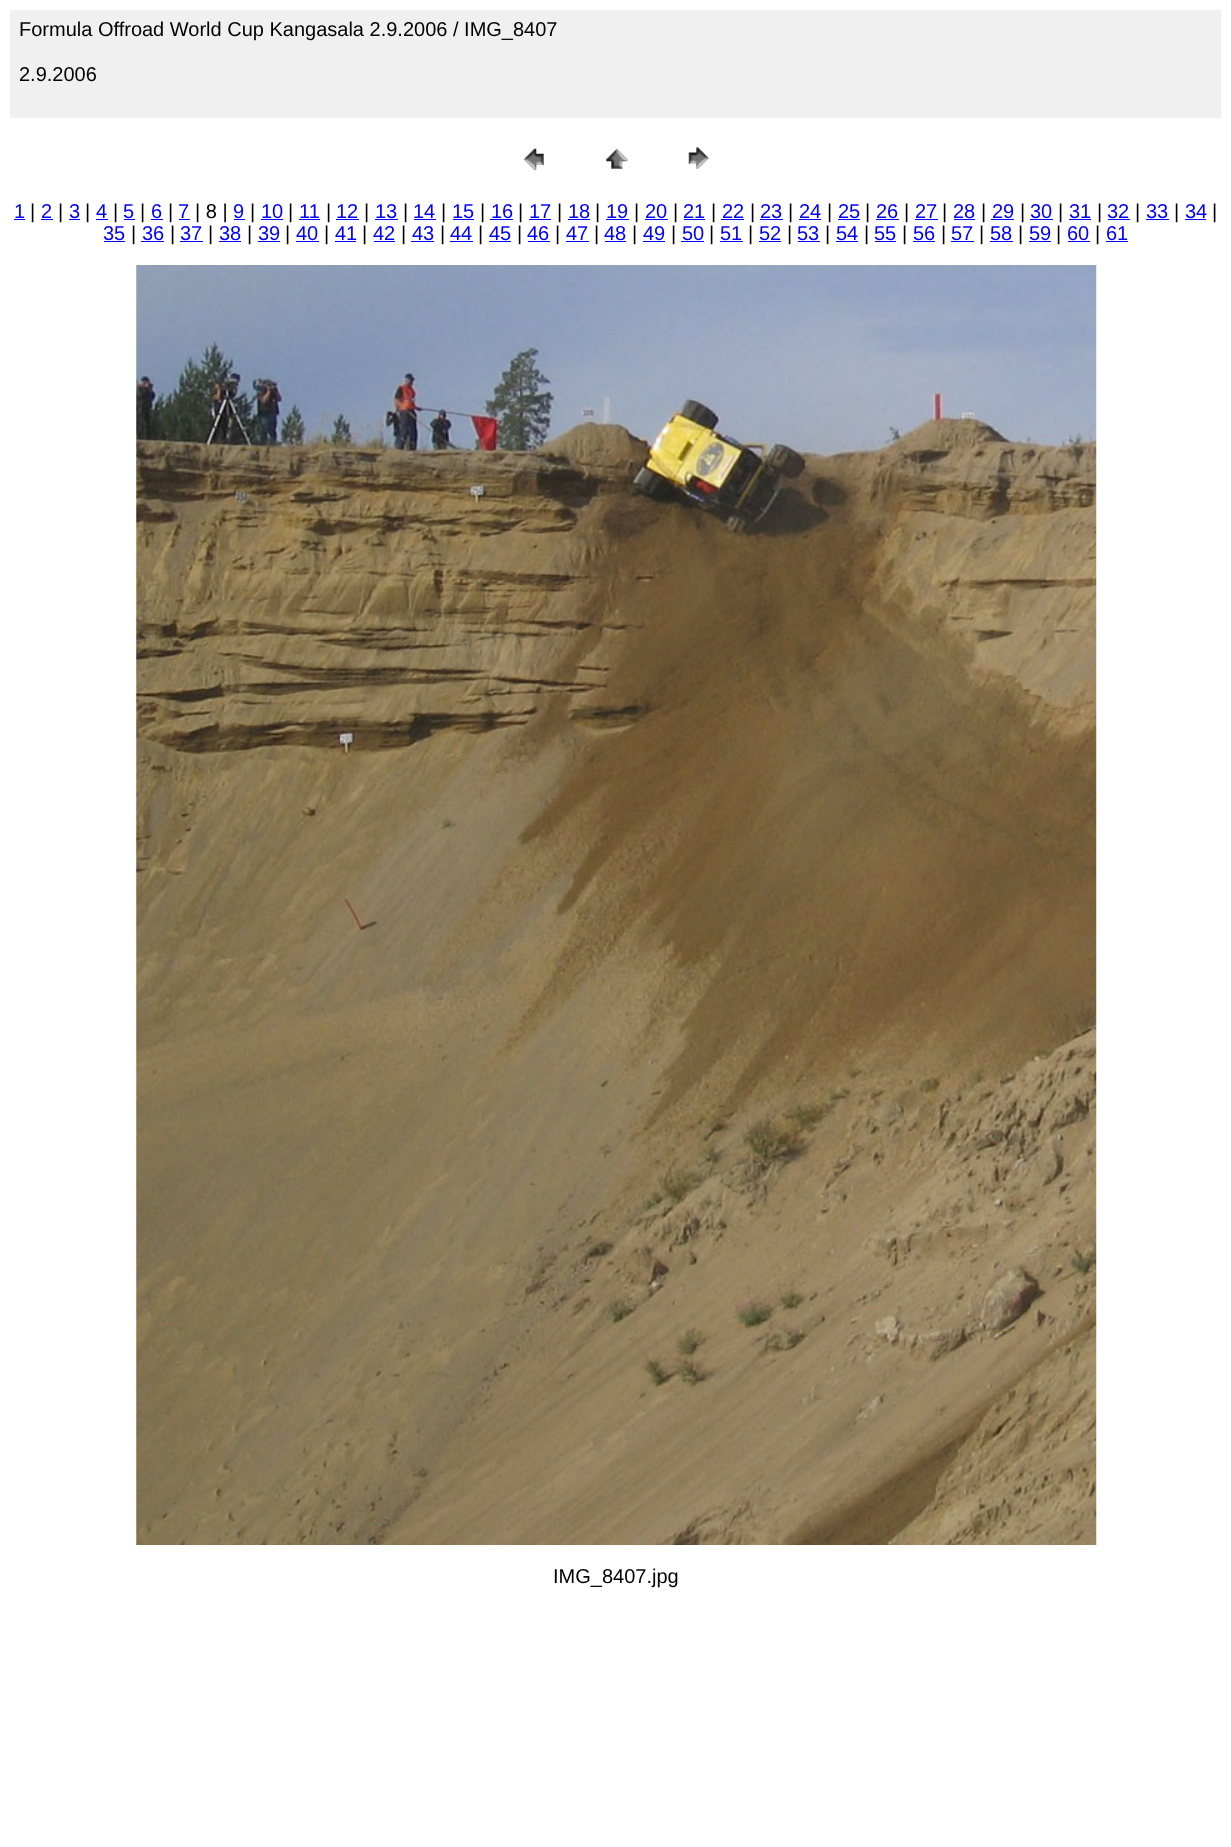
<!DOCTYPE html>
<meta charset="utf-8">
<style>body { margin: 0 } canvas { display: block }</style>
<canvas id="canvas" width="1231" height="1847"></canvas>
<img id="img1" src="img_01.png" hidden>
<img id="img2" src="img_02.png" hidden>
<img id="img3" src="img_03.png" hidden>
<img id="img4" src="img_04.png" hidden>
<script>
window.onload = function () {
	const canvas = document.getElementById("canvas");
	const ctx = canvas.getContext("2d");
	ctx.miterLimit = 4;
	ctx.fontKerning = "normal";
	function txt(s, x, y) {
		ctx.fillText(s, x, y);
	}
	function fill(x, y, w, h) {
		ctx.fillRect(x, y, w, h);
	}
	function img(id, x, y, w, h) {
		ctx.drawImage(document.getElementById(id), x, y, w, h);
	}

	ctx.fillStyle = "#FFFFFF";
	fill(0, 0, 1231, 1847);
	ctx.fillStyle = "#F0F0F0";
	fill(10, 10, 1211, 108);
	img("img1", 523, 148, 21, 23);
	img("img2", 606, 148, 22, 21);
	img("img3", 688, 147, 21, 22);
	ctx.fillStyle = "#0000FF";
	fill(14, 219, 11, 1);
	fill(41, 219, 12, 1);
	fill(69, 219, 11, 1);
	fill(96, 219, 12, 1);
	fill(124, 219, 11, 1);
	fill(151, 219, 12, 1);
	fill(179, 219, 11, 1);
	fill(234, 219, 11, 1);
	fill(261, 219, 22, 1);
	fill(299, 219, 21, 1);
	fill(336, 219, 23, 1);
	fill(375, 219, 23, 1);
	fill(414, 219, 22, 1);
	fill(453, 219, 21, 1);
	fill(490, 219, 23, 1);
	fill(529, 219, 22, 1);
	fill(568, 219, 22, 1);
	fill(606, 219, 23, 1);
	fill(645, 219, 23, 1);
	fill(684, 219, 21, 1);
	fill(721, 219, 23, 1);
	fill(760, 219, 23, 1);
	fill(799, 219, 22, 1);
	fill(838, 219, 22, 1);
	fill(876, 219, 23, 1);
	fill(915, 219, 23, 1);
	fill(954, 219, 21, 1);
	fill(991, 219, 23, 1);
	fill(1030, 219, 23, 1);
	fill(1069, 219, 22, 1);
	fill(1108, 219, 22, 1);
	fill(1146, 219, 23, 1);
	fill(1185, 219, 21, 1);
	fill(104, 241, 21, 1);
	fill(141, 241, 23, 1);
	fill(180, 241, 23, 1);
	fill(219, 241, 22, 1);
	fill(258, 241, 22, 1);
	fill(296, 241, 23, 1);
	fill(335, 241, 21, 1);
	fill(374, 241, 21, 1);
	fill(411, 241, 23, 1);
	fill(450, 241, 23, 1);
	fill(489, 241, 22, 1);
	fill(528, 241, 22, 1);
	fill(566, 241, 23, 1);
	fill(605, 241, 21, 1);
	fill(643, 241, 22, 1);
	fill(681, 241, 23, 1);
	fill(720, 241, 23, 1);
	fill(759, 241, 22, 1);
	fill(798, 241, 22, 1);
	fill(836, 241, 22, 1);
	fill(875, 241, 21, 1);
	fill(913, 241, 22, 1);
	fill(951, 241, 23, 1);
	fill(990, 241, 23, 1);
	fill(1029, 241, 22, 1);
	fill(1068, 241, 22, 1);
	fill(1106, 241, 22, 1);
	img("img4", 136, 265, 961, 1280);
	ctx.font = "20px Liberation Sans";
	ctx.fillStyle = "#000000";
	txt("Formula Offroad World Cup Kangasala 2.9.2006 / IMG_8407", 19, 36);
	txt("2.9.2006", 19, 81);
	ctx.fillStyle = "#0000FF";
	txt("1", 14, 218);
	ctx.fillStyle = "#000000";
	txt("|", 30, 218);
	ctx.fillStyle = "#0000FF";
	txt("2", 41, 218);
	ctx.fillStyle = "#000000";
	txt("|", 58, 218);
	ctx.fillStyle = "#0000FF";
	txt("3", 69, 218);
	ctx.fillStyle = "#000000";
	txt("|", 85, 218);
	ctx.fillStyle = "#0000FF";
	txt("4", 96, 218);
	ctx.fillStyle = "#000000";
	txt("|", 113, 218);
	ctx.fillStyle = "#0000FF";
	txt("5", 123, 218);
	ctx.fillStyle = "#000000";
	txt("|", 140, 218);
	ctx.fillStyle = "#0000FF";
	txt("6", 151, 218);
	ctx.fillStyle = "#000000";
	txt("|", 168, 218);
	ctx.fillStyle = "#0000FF";
	txt("7", 178, 218);
	ctx.fillStyle = "#000000";
	txt("| 8 |", 195, 218);
	ctx.fillStyle = "#0000FF";
	txt("9", 233, 218);
	ctx.fillStyle = "#000000";
	txt("|", 250, 218);
	ctx.fillStyle = "#0000FF";
	txt("10", 261, 218);
	ctx.fillStyle = "#000000";
	txt("|", 288, 218);
	ctx.fillStyle = "#0000FF";
	txt("11", 299, 218);
	ctx.fillStyle = "#000000";
	txt("|", 326, 218);
	ctx.fillStyle = "#0000FF";
	txt("12", 336, 218);
	ctx.fillStyle = "#000000";
	txt("|", 364, 218);
	ctx.fillStyle = "#0000FF";
	txt("13", 375, 218);
	ctx.fillStyle = "#000000";
	txt("|", 403, 218);
	ctx.fillStyle = "#0000FF";
	txt("14", 413, 218);
	ctx.fillStyle = "#000000";
	txt("|", 441, 218);
	ctx.fillStyle = "#0000FF";
	txt("15", 452, 218);
	ctx.fillStyle = "#000000";
	txt("|", 480, 218);
	ctx.fillStyle = "#0000FF";
	txt("16", 491, 218);
	ctx.fillStyle = "#000000";
	txt("|", 518, 218);
	ctx.fillStyle = "#0000FF";
	txt("17", 529, 218);
	ctx.fillStyle = "#000000";
	txt("|", 557, 218);
	ctx.fillStyle = "#0000FF";
	txt("18", 568, 218);
	ctx.fillStyle = "#000000";
	txt("|", 595, 218);
	ctx.fillStyle = "#0000FF";
	txt("19", 606, 218);
	ctx.fillStyle = "#000000";
	txt("|", 634, 218);
	ctx.fillStyle = "#0000FF";
	txt("20", 645, 218);
	ctx.fillStyle = "#000000";
	txt("|", 673, 218);
	ctx.fillStyle = "#0000FF";
	txt("21", 683, 218);
	ctx.fillStyle = "#000000";
	txt("|", 711, 218);
	ctx.fillStyle = "#0000FF";
	txt("22", 722, 218);
	ctx.fillStyle = "#000000";
	txt("|", 750, 218);
	ctx.fillStyle = "#0000FF";
	txt("23", 760, 218);
	ctx.fillStyle = "#000000";
	txt("|", 788, 218);
	ctx.fillStyle = "#0000FF";
	txt("24", 799, 218);
	ctx.fillStyle = "#000000";
	txt("|", 827, 218);
	ctx.fillStyle = "#0000FF";
	txt("25", 838, 218);
	ctx.fillStyle = "#000000";
	txt("|", 865, 218);
	ctx.fillStyle = "#0000FF";
	txt("26", 876, 218);
	ctx.fillStyle = "#000000";
	txt("|", 904, 218);
	ctx.fillStyle = "#0000FF";
	txt("27", 915, 218);
	ctx.fillStyle = "#000000";
	txt("|", 942, 218);
	ctx.fillStyle = "#0000FF";
	txt("28", 953, 218);
	ctx.fillStyle = "#000000";
	txt("|", 981, 218);
	ctx.fillStyle = "#0000FF";
	txt("29", 992, 218);
	ctx.fillStyle = "#000000";
	txt("|", 1020, 218);
	ctx.fillStyle = "#0000FF";
	txt("30", 1030, 218);
	ctx.fillStyle = "#000000";
	txt("|", 1058, 218);
	ctx.fillStyle = "#0000FF";
	txt("31", 1069, 218);
	ctx.fillStyle = "#000000";
	txt("|", 1097, 218);
	ctx.fillStyle = "#0000FF";
	txt("32", 1107, 218);
	ctx.fillStyle = "#000000";
	txt("|", 1135, 218);
	ctx.fillStyle = "#0000FF";
	txt("33", 1146, 218);
	ctx.fillStyle = "#000000";
	txt("|", 1174, 218);
	ctx.fillStyle = "#0000FF";
	txt("34", 1185, 218);
	ctx.fillStyle = "#000000";
	txt("|", 1212, 218);
	ctx.fillStyle = "#0000FF";
	txt("35", 103, 240);
	ctx.fillStyle = "#000000";
	txt("|", 131, 240);
	ctx.fillStyle = "#0000FF";
	txt("36", 142, 240);
	ctx.fillStyle = "#000000";
	txt("|", 170, 240);
	ctx.fillStyle = "#0000FF";
	txt("37", 180, 240);
	ctx.fillStyle = "#000000";
	txt("|", 208, 240);
	ctx.fillStyle = "#0000FF";
	txt("38", 219, 240);
	ctx.fillStyle = "#000000";
	txt("|", 247, 240);
	ctx.fillStyle = "#0000FF";
	txt("39", 258, 240);
	ctx.fillStyle = "#000000";
	txt("|", 285, 240);
	ctx.fillStyle = "#0000FF";
	txt("40", 296, 240);
	ctx.fillStyle = "#000000";
	txt("|", 324, 240);
	ctx.fillStyle = "#0000FF";
	txt("41", 335, 240);
	ctx.fillStyle = "#000000";
	txt("|", 362, 240);
	ctx.fillStyle = "#0000FF";
	txt("42", 373, 240);
	ctx.fillStyle = "#000000";
	txt("|", 401, 240);
	ctx.fillStyle = "#0000FF";
	txt("43", 412, 240);
	ctx.fillStyle = "#000000";
	txt("|", 440, 240);
	ctx.fillStyle = "#0000FF";
	txt("44", 450, 240);
	ctx.fillStyle = "#000000";
	txt("|", 478, 240);
	ctx.fillStyle = "#0000FF";
	txt("45", 489, 240);
	ctx.fillStyle = "#000000";
	txt("|", 517, 240);
	ctx.fillStyle = "#0000FF";
	txt("46", 527, 240);
	ctx.fillStyle = "#000000";
	txt("|", 555, 240);
	ctx.fillStyle = "#0000FF";
	txt("47", 566, 240);
	ctx.fillStyle = "#000000";
	txt("|", 594, 240);
	ctx.fillStyle = "#0000FF";
	txt("48", 604, 240);
	ctx.fillStyle = "#000000";
	txt("|", 632, 240);
	ctx.fillStyle = "#0000FF";
	txt("49", 643, 240);
	ctx.fillStyle = "#000000";
	txt("|", 671, 240);
	ctx.fillStyle = "#0000FF";
	txt("50", 682, 240);
	ctx.fillStyle = "#000000";
	txt("|", 709, 240);
	ctx.fillStyle = "#0000FF";
	txt("51", 720, 240);
	ctx.fillStyle = "#000000";
	txt("|", 748, 240);
	ctx.fillStyle = "#0000FF";
	txt("52", 759, 240);
	ctx.fillStyle = "#000000";
	txt("|", 787, 240);
	ctx.fillStyle = "#0000FF";
	txt("53", 797, 240);
	ctx.fillStyle = "#000000";
	txt("|", 825, 240);
	ctx.fillStyle = "#0000FF";
	txt("54", 836, 240);
	ctx.fillStyle = "#000000";
	txt("|", 864, 240);
	ctx.fillStyle = "#0000FF";
	txt("55", 874, 240);
	ctx.fillStyle = "#000000";
	txt("|", 902, 240);
	ctx.fillStyle = "#0000FF";
	txt("56", 913, 240);
	ctx.fillStyle = "#000000";
	txt("|", 941, 240);
	ctx.fillStyle = "#0000FF";
	txt("57", 951, 240);
	ctx.fillStyle = "#000000";
	txt("|", 979, 240);
	ctx.fillStyle = "#0000FF";
	txt("58", 990, 240);
	ctx.fillStyle = "#000000";
	txt("|", 1018, 240);
	ctx.fillStyle = "#0000FF";
	txt("59", 1029, 240);
	ctx.fillStyle = "#000000";
	txt("|", 1056, 240);
	ctx.fillStyle = "#0000FF";
	txt("60", 1067, 240);
	ctx.fillStyle = "#000000";
	txt("|", 1095, 240);
	ctx.fillStyle = "#0000FF";
	txt("61", 1106, 240);
	ctx.fillStyle = "#000000";
	txt("IMG_8407.jpg", 553, 1583);
};
</script>
